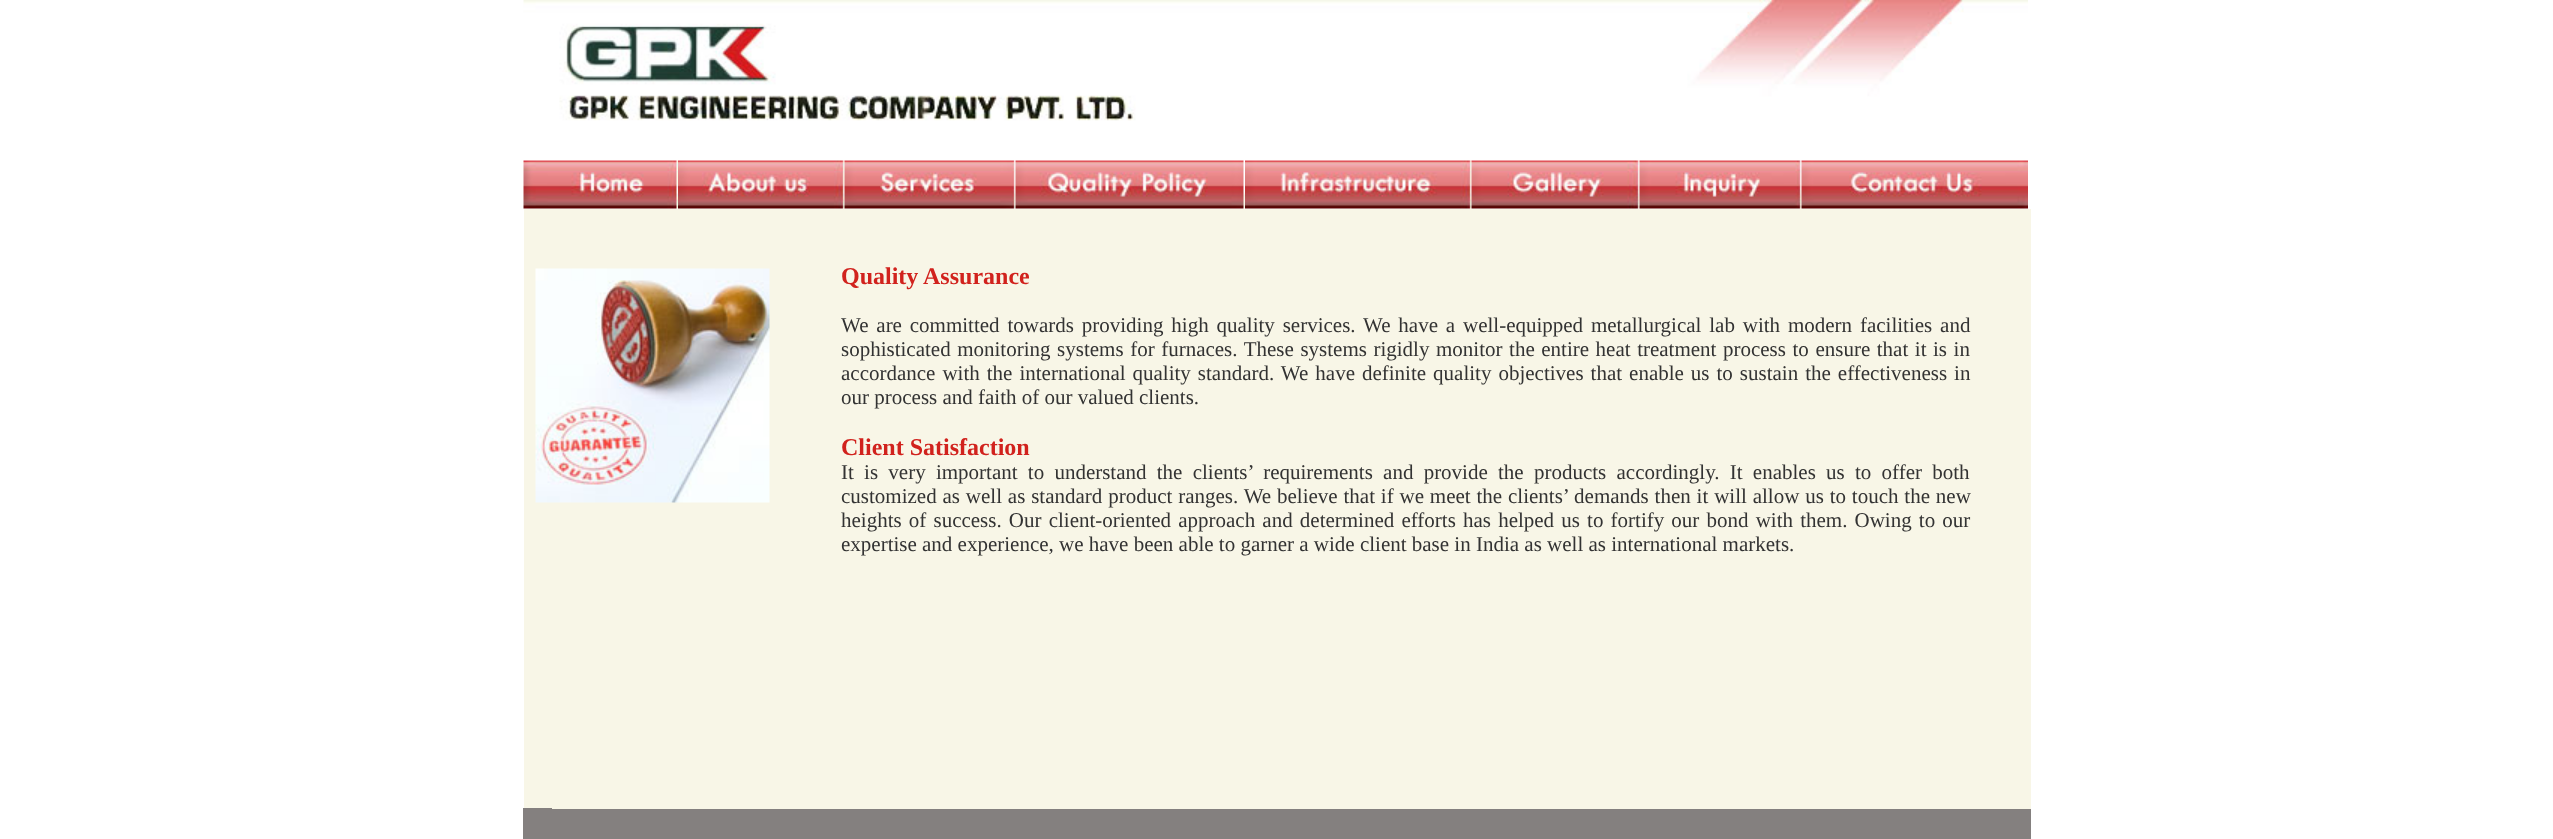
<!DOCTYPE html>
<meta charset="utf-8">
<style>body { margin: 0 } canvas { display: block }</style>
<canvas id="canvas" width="2553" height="839"></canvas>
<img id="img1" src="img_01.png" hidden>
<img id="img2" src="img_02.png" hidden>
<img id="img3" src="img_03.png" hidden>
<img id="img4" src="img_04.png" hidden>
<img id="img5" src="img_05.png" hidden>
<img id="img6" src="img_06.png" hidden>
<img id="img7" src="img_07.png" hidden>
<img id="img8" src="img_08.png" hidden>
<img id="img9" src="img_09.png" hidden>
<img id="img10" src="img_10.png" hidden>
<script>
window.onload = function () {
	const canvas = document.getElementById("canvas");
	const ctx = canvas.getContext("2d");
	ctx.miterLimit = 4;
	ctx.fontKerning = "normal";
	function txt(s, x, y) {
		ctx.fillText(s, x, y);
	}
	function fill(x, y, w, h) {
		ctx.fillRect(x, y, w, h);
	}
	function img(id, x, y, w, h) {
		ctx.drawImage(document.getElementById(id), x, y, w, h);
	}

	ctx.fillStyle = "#FFFFFF";
	fill(0, 0, 2553, 839);
	img("img1", 523, 0, 1505, 121);
	img("img2", 523, 160, 155, 49);
	img("img3", 678, 160, 167, 49);
	img("img4", 844, 160, 172, 49);
	img("img5", 1015, 160, 230, 49);
	img("img6", 1245, 160, 227, 49);
	img("img7", 1471, 160, 169, 49);
	img("img8", 1639, 160, 163, 49);
	img("img9", 1801, 160, 227, 49);
	ctx.fillStyle = "#F8F6E7";
	fill(524, 209, 1507, 600);
	img("img10", 535, 268, 235, 235);
	ctx.fillStyle = "#84807F";
	fill(552, 809, 1479, 30);
	fill(523, 808, 29, 31);
	ctx.font = "bold 24px Liberation Serif";
	ctx.fillStyle = "#D1221D";
	txt("Quality Assurance", 841, 284);
	ctx.wordSpacing = "2.6px";
	ctx.font = "21px Liberation Serif";
	ctx.fillStyle = "#333333";
	txt("We are committed towards providing high quality services. We have a well-equipped metallurgical lab with modern facilities and", 841, 332);
	ctx.wordSpacing = "1.3px";
	txt("sophisticated monitoring systems for furnaces. These systems rigidly monitor the entire heat treatment process to ensure that it is in", 841, 356);
	ctx.wordSpacing = "1.75px";
	txt("accordance with the international quality standard. We have definite quality objectives that enable us to sustain the effectiveness in", 841, 380);
	ctx.wordSpacing = "0px";
	txt("our process and faith of our valued clients.", 841, 404);
	ctx.font = "bold 24px Liberation Serif";
	ctx.fillStyle = "#D1221D";
	txt("Client Satisfaction", 841, 455);
	ctx.wordSpacing = "5px";
	ctx.font = "21px Liberation Serif";
	ctx.fillStyle = "#333333";
	txt("It is very important to understand the clients’ requirements and provide the products accordingly. It enables us to offer both", 841, 479);
	ctx.wordSpacing = "0.6px";
	txt("customized as well as standard product ranges. We believe that if we meet the clients’ demands then it will allow us to touch the new", 841, 503);
	ctx.wordSpacing = "1.9px";
	txt("heights of success. Our client-oriented approach and determined efforts has helped us to fortify our bond with them. Owing to our", 841, 527);
	ctx.wordSpacing = "0px";
	txt("expertise and experience, we have been able to garner a wide client base in India as well as international markets.", 841, 551);
};
</script>
